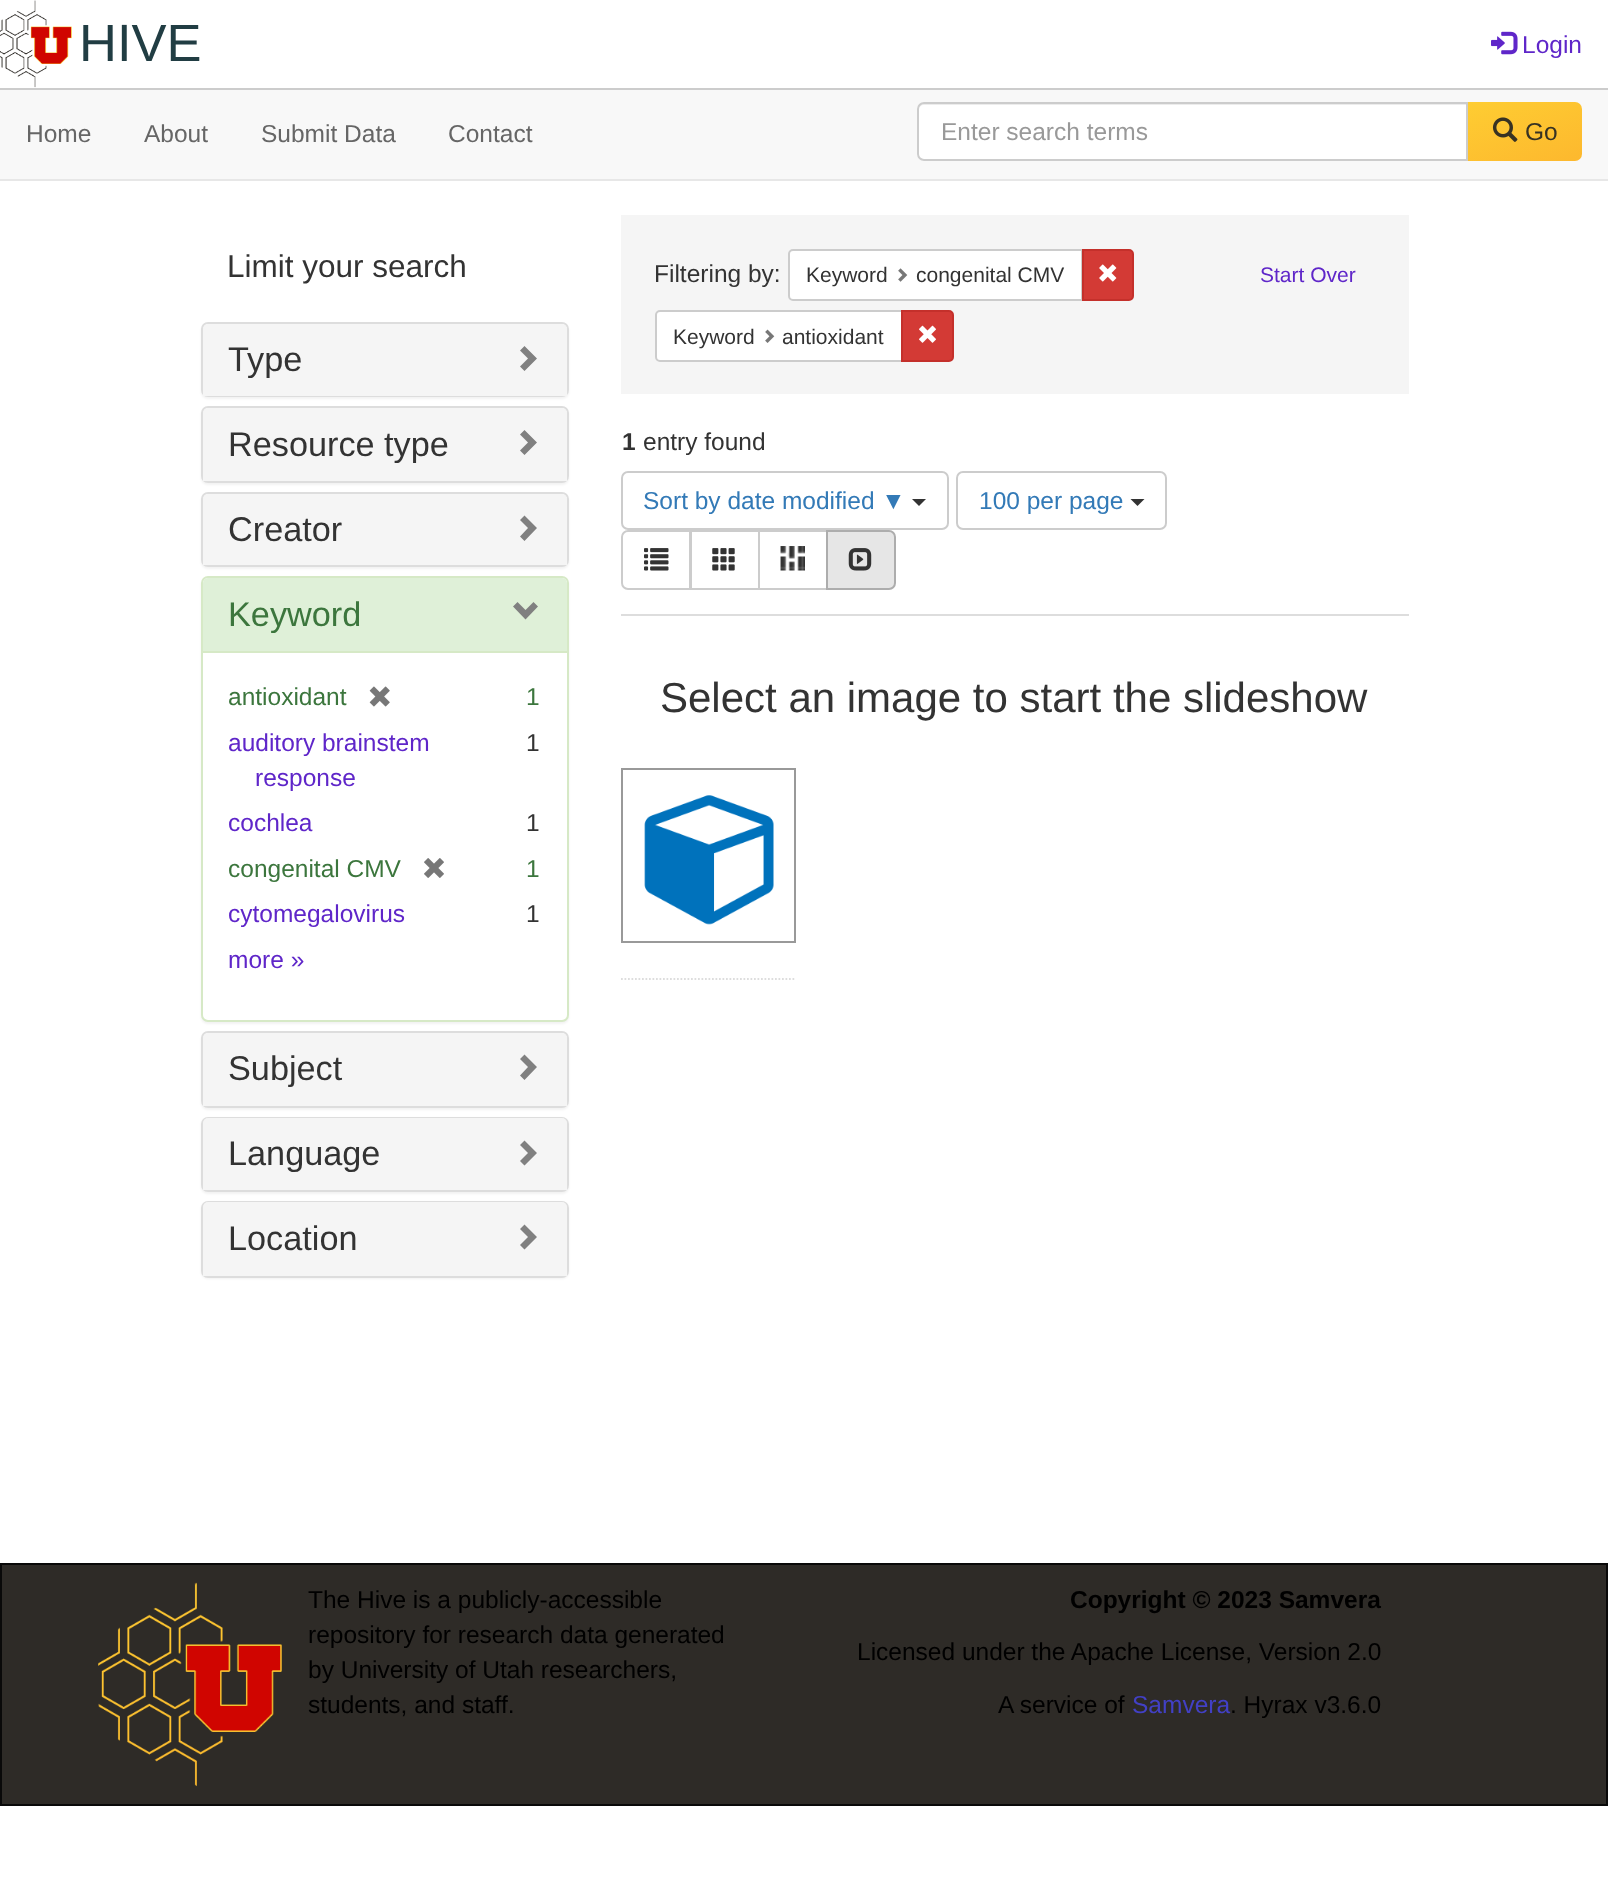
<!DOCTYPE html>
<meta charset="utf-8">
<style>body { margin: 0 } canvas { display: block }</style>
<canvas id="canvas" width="1608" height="1886"></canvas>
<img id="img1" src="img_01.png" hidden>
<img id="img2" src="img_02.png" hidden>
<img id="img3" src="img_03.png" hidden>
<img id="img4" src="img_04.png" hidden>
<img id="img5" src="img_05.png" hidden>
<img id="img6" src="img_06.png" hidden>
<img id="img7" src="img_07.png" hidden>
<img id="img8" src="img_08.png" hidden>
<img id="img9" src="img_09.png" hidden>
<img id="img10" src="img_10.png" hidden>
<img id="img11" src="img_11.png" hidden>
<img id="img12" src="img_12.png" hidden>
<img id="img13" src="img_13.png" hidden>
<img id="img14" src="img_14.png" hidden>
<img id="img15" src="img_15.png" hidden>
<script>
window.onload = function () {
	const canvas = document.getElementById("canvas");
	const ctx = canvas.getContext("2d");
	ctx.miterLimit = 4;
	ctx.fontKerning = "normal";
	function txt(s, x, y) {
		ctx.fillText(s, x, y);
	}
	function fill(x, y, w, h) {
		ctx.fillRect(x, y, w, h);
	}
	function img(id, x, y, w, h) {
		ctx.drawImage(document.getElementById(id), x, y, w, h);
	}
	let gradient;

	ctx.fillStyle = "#FFFFFF";
	fill(0, 0, 1608, 1886);
	ctx.fillStyle = "#CCCCCC";
	fill(0, 88, 1608, 2);
	img("img1", 0, 0, 72, 88);
	img("img2", 1491, 31, 27, 24);
	ctx.fillStyle = "#F8F8F8";
	fill(0, 90, 1608, 89);
	ctx.fillStyle = "#E7E7E7";
	fill(0, 179, 1608, 2);
	ctx.fillStyle = "#FFFFFF";
	ctx.beginPath();
	ctx.roundRect(917, 102, 551, 59, [7, 0, 0, 7]);
	ctx.fill();
	ctx.fillStyle = "#ECECEC";
	ctx.beginPath();
	ctx.moveTo(924, 105);
	ctx.lineTo(1466, 105);
	ctx.lineTo(1466, 159);
	ctx.lineTo(1467, 159);
	ctx.lineTo(1467, 103);
	ctx.lineTo(924, 103);
	ctx.bezierCurveTo(920, 103, 919, 107, 919, 110);
	ctx.bezierCurveTo(919, 107, 921, 105, 924, 105);
	ctx.closePath();
	ctx.fill();
	ctx.beginPath();
	ctx.roundRect(918, 103, 549, 57, [6, 0, 0, 6]);
	ctx.strokeStyle = "#CCCCCC";
	ctx.lineWidth = 2;
	ctx.stroke();
	gradient = ctx.createLinearGradient(1508, 86, 1542, 176);
	gradient.addColorStop(0, "#FECD32");
	gradient.addColorStop(1, "#FDB82E");
	ctx.fillStyle = gradient;
	ctx.beginPath();
	ctx.roundRect(1468, 102, 114, 59, [0, 7, 7, 0]);
	ctx.fill();
	img("img3", 1492, 117, 26, 25);
	ctx.fillStyle = "rgba(0, 0, 0, 0.05)";
	ctx.filter = "blur(1px)";
	ctx.beginPath();
	ctx.roundRect(201, 324, 368, 75, 7);
	ctx.fill();
	ctx.filter = "none";
	ctx.beginPath();
	ctx.roundRect(202, 323, 366, 73, 6);
	ctx.strokeStyle = "#DDDDDD";
	ctx.stroke();
	ctx.fillStyle = "#F5F5F5";
	ctx.beginPath();
	ctx.roundRect(203, 324, 364, 72, [5, 5, 0, 0]);
	ctx.fill();
	ctx.fillStyle = "#808080";
	ctx.beginPath();
	ctx.moveTo(537, 358.5);
	ctx.lineTo(524.5, 371);
	ctx.lineTo(520, 366.5);
	ctx.lineTo(528, 358.5);
	ctx.lineTo(520, 350.5);
	ctx.lineTo(524.5, 346);
	ctx.closePath();
	ctx.fill();
	ctx.fillStyle = "rgba(0, 0, 0, 0.05)";
	ctx.filter = "blur(1px)";
	ctx.beginPath();
	ctx.roundRect(201, 408, 368, 77, 7);
	ctx.fill();
	ctx.filter = "none";
	ctx.beginPath();
	ctx.roundRect(202, 407, 366, 75, 6);
	ctx.stroke();
	ctx.fillStyle = "#F5F5F5";
	ctx.beginPath();
	ctx.roundRect(203, 408, 364, 73, [5, 5, 0, 0]);
	ctx.fill();
	ctx.fillStyle = "#808080";
	ctx.beginPath();
	ctx.moveTo(537, 442.5);
	ctx.lineTo(524.5, 455);
	ctx.lineTo(520, 450.5);
	ctx.lineTo(528, 442.5);
	ctx.lineTo(520, 434.5);
	ctx.lineTo(524.5, 430);
	ctx.closePath();
	ctx.fill();
	ctx.fillStyle = "rgba(0, 0, 0, 0.05)";
	ctx.filter = "blur(1px)";
	ctx.beginPath();
	ctx.roundRect(201, 494, 368, 75, 7);
	ctx.fill();
	ctx.filter = "none";
	ctx.beginPath();
	ctx.roundRect(202, 493, 366, 73, 6);
	ctx.stroke();
	ctx.fillStyle = "#F5F5F5";
	ctx.beginPath();
	ctx.roundRect(203, 494, 364, 71, [5, 5, 0, 0]);
	ctx.fill();
	ctx.fillStyle = "#808080";
	ctx.beginPath();
	ctx.moveTo(537, 528);
	ctx.lineTo(524.5, 541);
	ctx.lineTo(520, 536.5);
	ctx.lineTo(528, 528);
	ctx.lineTo(520, 520);
	ctx.lineTo(524.5, 515.5);
	ctx.closePath();
	ctx.fill();
	ctx.fillStyle = "rgba(0, 0, 0, 0.05)";
	ctx.filter = "blur(1px)";
	ctx.beginPath();
	ctx.roundRect(201, 578, 368, 446, 7);
	ctx.fill();
	ctx.filter = "none";
	ctx.fillStyle = "#FFFFFF";
	ctx.beginPath();
	ctx.roundRect(202, 577, 366, 444, 6);
	ctx.fill();
	ctx.strokeStyle = "#D6E9C6";
	ctx.stroke();
	ctx.fillStyle = "#DFF0D8";
	ctx.beginPath();
	ctx.roundRect(203, 578, 364, 73, [5, 5, 0, 0]);
	ctx.fill();
	ctx.fillStyle = "#808080";
	ctx.beginPath();
	ctx.moveTo(538, 606.5);
	ctx.lineTo(525.5, 619.5);
	ctx.lineTo(513, 606.5);
	ctx.lineTo(517.5, 602);
	ctx.lineTo(525.5, 610);
	ctx.lineTo(533.5, 602);
	ctx.closePath();
	ctx.fill();
	ctx.fillStyle = "#D6E9C6";
	fill(203, 651, 364, 2);
	img("img4", 369, 686, 21, 21);
	img("img5", 424, 858, 20, 20);
	ctx.fillStyle = "rgba(0, 0, 0, 0.05)";
	ctx.filter = "blur(1px)";
	ctx.beginPath();
	ctx.roundRect(201, 1033, 368, 77, 7);
	ctx.fill();
	ctx.filter = "none";
	ctx.beginPath();
	ctx.roundRect(202, 1032, 366, 75, 6);
	ctx.strokeStyle = "#DDDDDD";
	ctx.stroke();
	ctx.fillStyle = "#F5F5F5";
	ctx.beginPath();
	ctx.roundRect(203, 1033, 364, 73, [5, 5, 0, 0]);
	ctx.fill();
	ctx.fillStyle = "#808080";
	ctx.beginPath();
	ctx.moveTo(537, 1067);
	ctx.lineTo(524.5, 1080);
	ctx.lineTo(520, 1075.5);
	ctx.lineTo(528, 1067);
	ctx.lineTo(520, 1059);
	ctx.lineTo(524.5, 1054.5);
	ctx.closePath();
	ctx.fill();
	ctx.fillStyle = "rgba(0, 0, 0, 0.05)";
	ctx.filter = "blur(1px)";
	ctx.beginPath();
	ctx.roundRect(201, 1118, 368, 76, 7);
	ctx.fill();
	ctx.filter = "none";
	ctx.beginPath();
	ctx.roundRect(202, 1118, 366, 73, 6);
	ctx.stroke();
	ctx.fillStyle = "#F5F5F5";
	ctx.beginPath();
	ctx.roundRect(203, 1118, 364, 72, [5, 5, 0, 0]);
	ctx.fill();
	ctx.fillStyle = "#808080";
	ctx.beginPath();
	ctx.moveTo(537, 1153);
	ctx.lineTo(524.5, 1165.5);
	ctx.lineTo(520, 1161);
	ctx.lineTo(528, 1153);
	ctx.lineTo(520, 1145);
	ctx.lineTo(524.5, 1140.5);
	ctx.closePath();
	ctx.fill();
	ctx.fillStyle = "rgba(0, 0, 0, 0.05)";
	ctx.filter = "blur(1px)";
	ctx.beginPath();
	ctx.roundRect(201, 1202, 368, 77, 7);
	ctx.fill();
	ctx.filter = "none";
	ctx.beginPath();
	ctx.roundRect(202, 1202, 366, 75, 6);
	ctx.stroke();
	ctx.fillStyle = "#F5F5F5";
	ctx.beginPath();
	ctx.roundRect(203, 1202, 364, 74, [5, 5, 0, 0]);
	ctx.fill();
	ctx.fillStyle = "#808080";
	ctx.beginPath();
	ctx.moveTo(537, 1237);
	ctx.lineTo(524.5, 1249.5);
	ctx.lineTo(520, 1245);
	ctx.lineTo(528, 1237);
	ctx.lineTo(520, 1229);
	ctx.lineTo(524.5, 1224.5);
	ctx.closePath();
	ctx.fill();
	ctx.fillStyle = "#F5F5F5";
	fill(621, 215, 788, 179);
	ctx.fillStyle = "#FFFFFF";
	ctx.beginPath();
	ctx.roundRect(789, 250, 293, 50, [4, 0, 0, 4]);
	ctx.fill();
	ctx.strokeStyle = "#CCCCCC";
	ctx.stroke();
	img("img6", 898, 268, 10, 14);
	ctx.fillStyle = "#D33A35";
	ctx.beginPath();
	ctx.roundRect(1083, 250, 50, 50, [0, 4, 4, 0]);
	ctx.fill();
	ctx.strokeStyle = "#C4302B";
	ctx.stroke();
	img("img7", 1099, 264, 18, 18);
	ctx.fillStyle = "#FFFFFF";
	ctx.beginPath();
	ctx.roundRect(656, 311, 246, 50, [4, 0, 0, 4]);
	ctx.fill();
	ctx.strokeStyle = "#CCCCCC";
	ctx.stroke();
	img("img8", 765, 329, 10, 14);
	ctx.fillStyle = "#D33A35";
	ctx.beginPath();
	ctx.roundRect(902, 311, 51, 50, [0, 4, 4, 0]);
	ctx.fill();
	ctx.strokeStyle = "#C4302B";
	ctx.stroke();
	img("img9", 919, 325, 17, 18);
	ctx.fillStyle = "#DDDDDD";
	fill(621, 614, 788, 2);
	ctx.beginPath();
	ctx.roundRect(622, 472, 326, 57, 6);
	ctx.strokeStyle = "#CCCCCC";
	ctx.stroke();
	ctx.fillStyle = "#333333";
	ctx.beginPath();
	ctx.moveTo(912, 499);
	ctx.lineTo(926, 499);
	ctx.lineTo(919, 506);
	ctx.closePath();
	ctx.fill();
	ctx.beginPath();
	ctx.roundRect(957, 472, 209, 57, 6);
	ctx.stroke();
	ctx.beginPath();
	ctx.moveTo(1130.5, 499);
	ctx.lineTo(1144.5, 499);
	ctx.lineTo(1137.5, 506);
	ctx.closePath();
	ctx.fill();
	ctx.beginPath();
	ctx.roundRect(622, 531, 68, 58, [6, 0, 0, 6]);
	ctx.stroke();
	img("img10", 644, 548, 25, 23);
	ctx.strokeRect(691, 531, 68, 58);
	img("img11", 712, 548, 23, 23);
	ctx.strokeRect(759, 531, 68, 58);
	img("img12", 780, 546, 25, 25);
	ctx.fillStyle = "#E6E6E6";
	ctx.beginPath();
	ctx.roundRect(827, 531, 68, 58, [0, 6, 6, 0]);
	ctx.fill();
	ctx.strokeStyle = "#ADADAD";
	ctx.stroke();
	img("img13", 848, 548, 24, 23);
	ctx.beginPath();
	ctx.moveTo(621, 979);
	ctx.lineTo(796, 979);
	ctx.strokeStyle = "#DDDDDD";
	ctx.lineWidth = 1.8;
	ctx.setLineDash([1.75, 1.75]);
	ctx.stroke();
	ctx.strokeStyle = "#999999";
	ctx.lineWidth = 2;
	ctx.setLineDash([]);
	ctx.strokeRect(622, 769, 173, 173);
	img("img14", 644, 795, 130, 130);
	ctx.fillStyle = "#2E2B27";
	ctx.beginPath();
	ctx.rect(1, 1564, 1606, 241);
	ctx.fill();
	ctx.strokeStyle = "#090909";
	ctx.stroke();
	img("img15", 98, 1582, 184, 205);
	ctx.font = "52.5px Liberation Sans";
	ctx.fillStyle = "#213D43";
	txt("HIVE", 79, 61);
	ctx.font = "24.5px Liberation Sans";
	ctx.fillStyle = "#5F26C9";
	txt("Login", 1522, 53);
	ctx.fillStyle = "#666666";
	txt("Home", 26, 142);
	txt("About", 144, 142);
	txt("Submit Data", 261, 142);
	txt("Contact", 448, 142);
	ctx.fillStyle = "#999999";
	txt("Enter search terms", 941, 140);
	ctx.fillStyle = "#373223";
	txt("Go", 1525, 140);
	ctx.font = "31.5px Liberation Sans";
	ctx.fillStyle = "#333333";
	txt("Limit your search", 227, 277);
	ctx.font = "34.25px Liberation Sans";
	txt("Type", 228, 371);
	txt("Resource type", 228, 456);
	txt("Creator", 228, 541);
	ctx.fillStyle = "#3C763D";
	txt("Keyword", 228, 626);
	ctx.font = "24.5px Liberation Sans";
	txt("antioxidant", 228, 705);
	txt("1", 526, 705);
	ctx.fillStyle = "#5F26C9";
	txt("auditory brainstem", 228, 751);
	txt("response", 255, 786);
	ctx.fillStyle = "#333333";
	txt("1", 526, 751);
	ctx.fillStyle = "#5F26C9";
	txt("cochlea", 228, 831);
	ctx.fillStyle = "#333333";
	txt("1", 526, 831);
	ctx.fillStyle = "#3C763D";
	txt("congenital CMV", 228, 877);
	txt("1", 526, 877);
	ctx.fillStyle = "#5F26C9";
	txt("cytomegalovirus", 228, 922);
	ctx.fillStyle = "#333333";
	txt("1", 526, 922);
	ctx.fillStyle = "#5F26C9";
	txt("more »", 228, 968);
	ctx.font = "34.25px Liberation Sans";
	ctx.fillStyle = "#333333";
	txt("Subject", 228, 1080);
	txt("Language", 228, 1165);
	txt("Location", 228, 1250);
	ctx.font = "24.5px Liberation Sans";
	txt("Filtering by:", 654, 282);
	ctx.font = "21px Liberation Sans";
	txt("Keyword", 806, 282);
	txt("congenital CMV", 916, 282);
	ctx.fillStyle = "#5F26C9";
	txt("Start Over", 1260, 282);
	ctx.fillStyle = "#333333";
	txt("Keyword", 673, 344);
	txt("antioxidant", 782, 344);
	ctx.font = "bold 24.5px Liberation Sans";
	txt("1", 622, 450);
	ctx.font = "24.5px Liberation Sans";
	txt("entry found", 643, 450);
	ctx.fillStyle = "#337AB7";
	txt("Sort by date modified ▼", 643, 509);
	txt("100 per page", 979, 509);
	ctx.font = "42px Liberation Sans";
	ctx.fillStyle = "#333333";
	txt("Select an image to start the slideshow", 660, 712);
	ctx.font = "24.5px Liberation Sans";
	ctx.fillStyle = "#000000";
	txt("The Hive is a publicly-accessible", 308, 1608);
	txt("repository for research data generated", 308, 1643);
	txt("by University of Utah researchers,", 308, 1678);
	txt("students, and staff.", 308, 1713);
	ctx.font = "bold 24.5px Liberation Sans";
	txt("Copyright © 2023 Samvera", 1070, 1608);
	ctx.font = "24.5px Liberation Sans";
	txt("Licensed under the Apache License, Version 2.0", 857, 1660);
	txt("A service of", 998, 1713);
	ctx.fillStyle = "#4240C4";
	txt("Samvera", 1132, 1713);
	ctx.fillStyle = "#000000";
	txt(". Hyrax v3.6.0", 1230, 1713);
};
</script>
